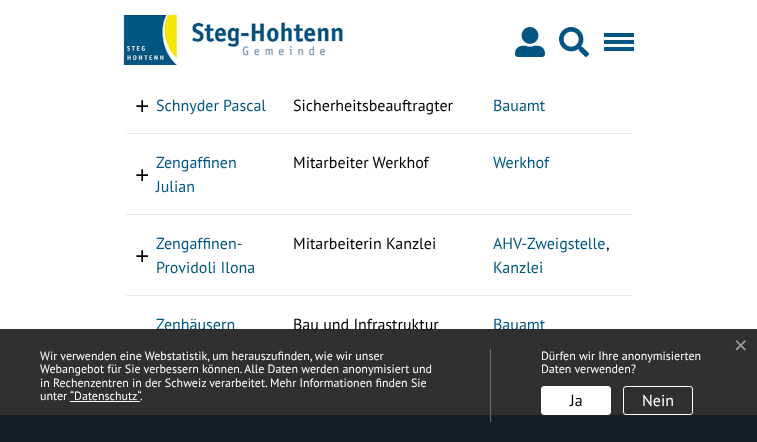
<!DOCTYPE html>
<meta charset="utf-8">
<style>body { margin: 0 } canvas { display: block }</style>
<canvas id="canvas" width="757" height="442"></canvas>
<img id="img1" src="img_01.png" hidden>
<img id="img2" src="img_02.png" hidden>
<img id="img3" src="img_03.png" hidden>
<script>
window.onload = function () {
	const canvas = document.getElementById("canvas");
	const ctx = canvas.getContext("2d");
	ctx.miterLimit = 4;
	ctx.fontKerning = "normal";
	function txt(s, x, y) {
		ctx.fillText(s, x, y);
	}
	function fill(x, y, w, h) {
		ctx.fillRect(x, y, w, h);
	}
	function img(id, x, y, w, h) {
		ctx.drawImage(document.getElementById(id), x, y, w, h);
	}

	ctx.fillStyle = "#FFFFFF";
	fill(0, 0, 757, 442);
	img("img1", 123, 15, 220, 50);
	img("img2", 515, 27, 30, 30);
	img("img3", 559, 27, 30, 30);
	ctx.fillStyle = "#025782";
	fill(604, 33, 30, 4);
	fill(604, 40, 30, 4);
	fill(604, 47, 30, 4);
	ctx.fillStyle = "#E6ECEE";
	fill(126, 376, 506, 1);
	fill(126, 133, 506, 1);
	fill(126, 214, 506, 1);
	fill(126, 295, 506, 1);
	ctx.fillStyle = "#025782";
	fill(0, 415, 757, 27);
	ctx.font = "24px Liberation Mono";
	ctx.fillStyle = "#000000";
	txt("+", 135, 114);
	ctx.font = "16px PT Sans";
	ctx.fillStyle = "#025782";
	txt("Schnyder Pascal", 156, 111);
	ctx.fillStyle = "#000000";
	txt("Sicherheitsbeauftragter", 293, 111);
	ctx.fillStyle = "#025782";
	txt("Bauamt", 493, 111);
	txt("Zengaffinen", 156, 168);
	ctx.font = "24px Liberation Mono";
	ctx.fillStyle = "#000000";
	txt("+", 135, 183);
	ctx.font = "16px PT Sans";
	ctx.fillStyle = "#025782";
	txt("Julian", 156, 192);
	ctx.fillStyle = "#000000";
	txt("Mitarbeiter Werkhof", 293, 168);
	ctx.fillStyle = "#025782";
	txt("Werkhof", 493, 168);
	txt("Zengaffinen-", 156, 249);
	ctx.font = "24px Liberation Mono";
	ctx.fillStyle = "#000000";
	txt("+", 135, 264);
	ctx.font = "16px PT Sans";
	ctx.fillStyle = "#025782";
	txt("Providoli Ilona", 156, 273);
	ctx.fillStyle = "#000000";
	txt("Mitarbeiterin Kanzlei", 293, 249);
	ctx.fillStyle = "#025782";
	txt("AHV-Zweigstelle", 493, 249);
	ctx.fillStyle = "#000000";
	txt(",", 606, 249);
	ctx.fillStyle = "#025782";
	txt("Kanzlei", 493, 273);
	txt("Zenhäusern", 156, 330);
	ctx.fillStyle = "#000000";
	txt("Bau und Infrastruktur", 293, 330);
	ctx.fillStyle = "#025782";
	txt("Bauamt", 493, 330);
	ctx.fillStyle = "rgba(25, 25, 25, 0.9)";
	fill(0, 329, 757, 113);
	ctx.font = "23px Liberation Sans";
	ctx.fillStyle = "#A2A2A2";
	txt("×", 734, 353);
	ctx.fillStyle = "#6D6D6D";
	fill(490, 349, 1, 73);
	ctx.font = "12px PT Sans";
	ctx.fillStyle = "#FFFFFF";
	txt("Wir verwenden eine Webstatistik, um herauszufinden, wie wir unser", 40, 360);
	txt("Webangebot für Sie verbessern können. Alle Daten werden anonymisiert und", 40, 373);
	txt("in Rechenzentren in der Schweiz verarbeitet. Mehr Informationen finden Sie", 40, 387);
	txt("unter", 40, 400);
	txt("“Datenschutz“", 70, 400);
	fill(70, 401, 70, 1);
	txt(".", 140, 400);
	txt("Dürfen wir Ihre anonymisierten", 541, 360);
	txt("Daten verwenden?", 541, 373);
	ctx.beginPath();
	ctx.roundRect(541.5, 386.5, 69, 28, 2.5);
	ctx.fill();
	ctx.strokeStyle = "#FFFFFF";
	ctx.stroke();
	ctx.font = "16px PT Sans";
	ctx.fillStyle = "#000000";
	txt("Ja", 570, 406);
	ctx.beginPath();
	ctx.roundRect(623.5, 386.5, 69, 28, 2.5);
	ctx.stroke();
	ctx.fillStyle = "#FFFFFF";
	txt("Nein", 642, 406);
};
</script>
